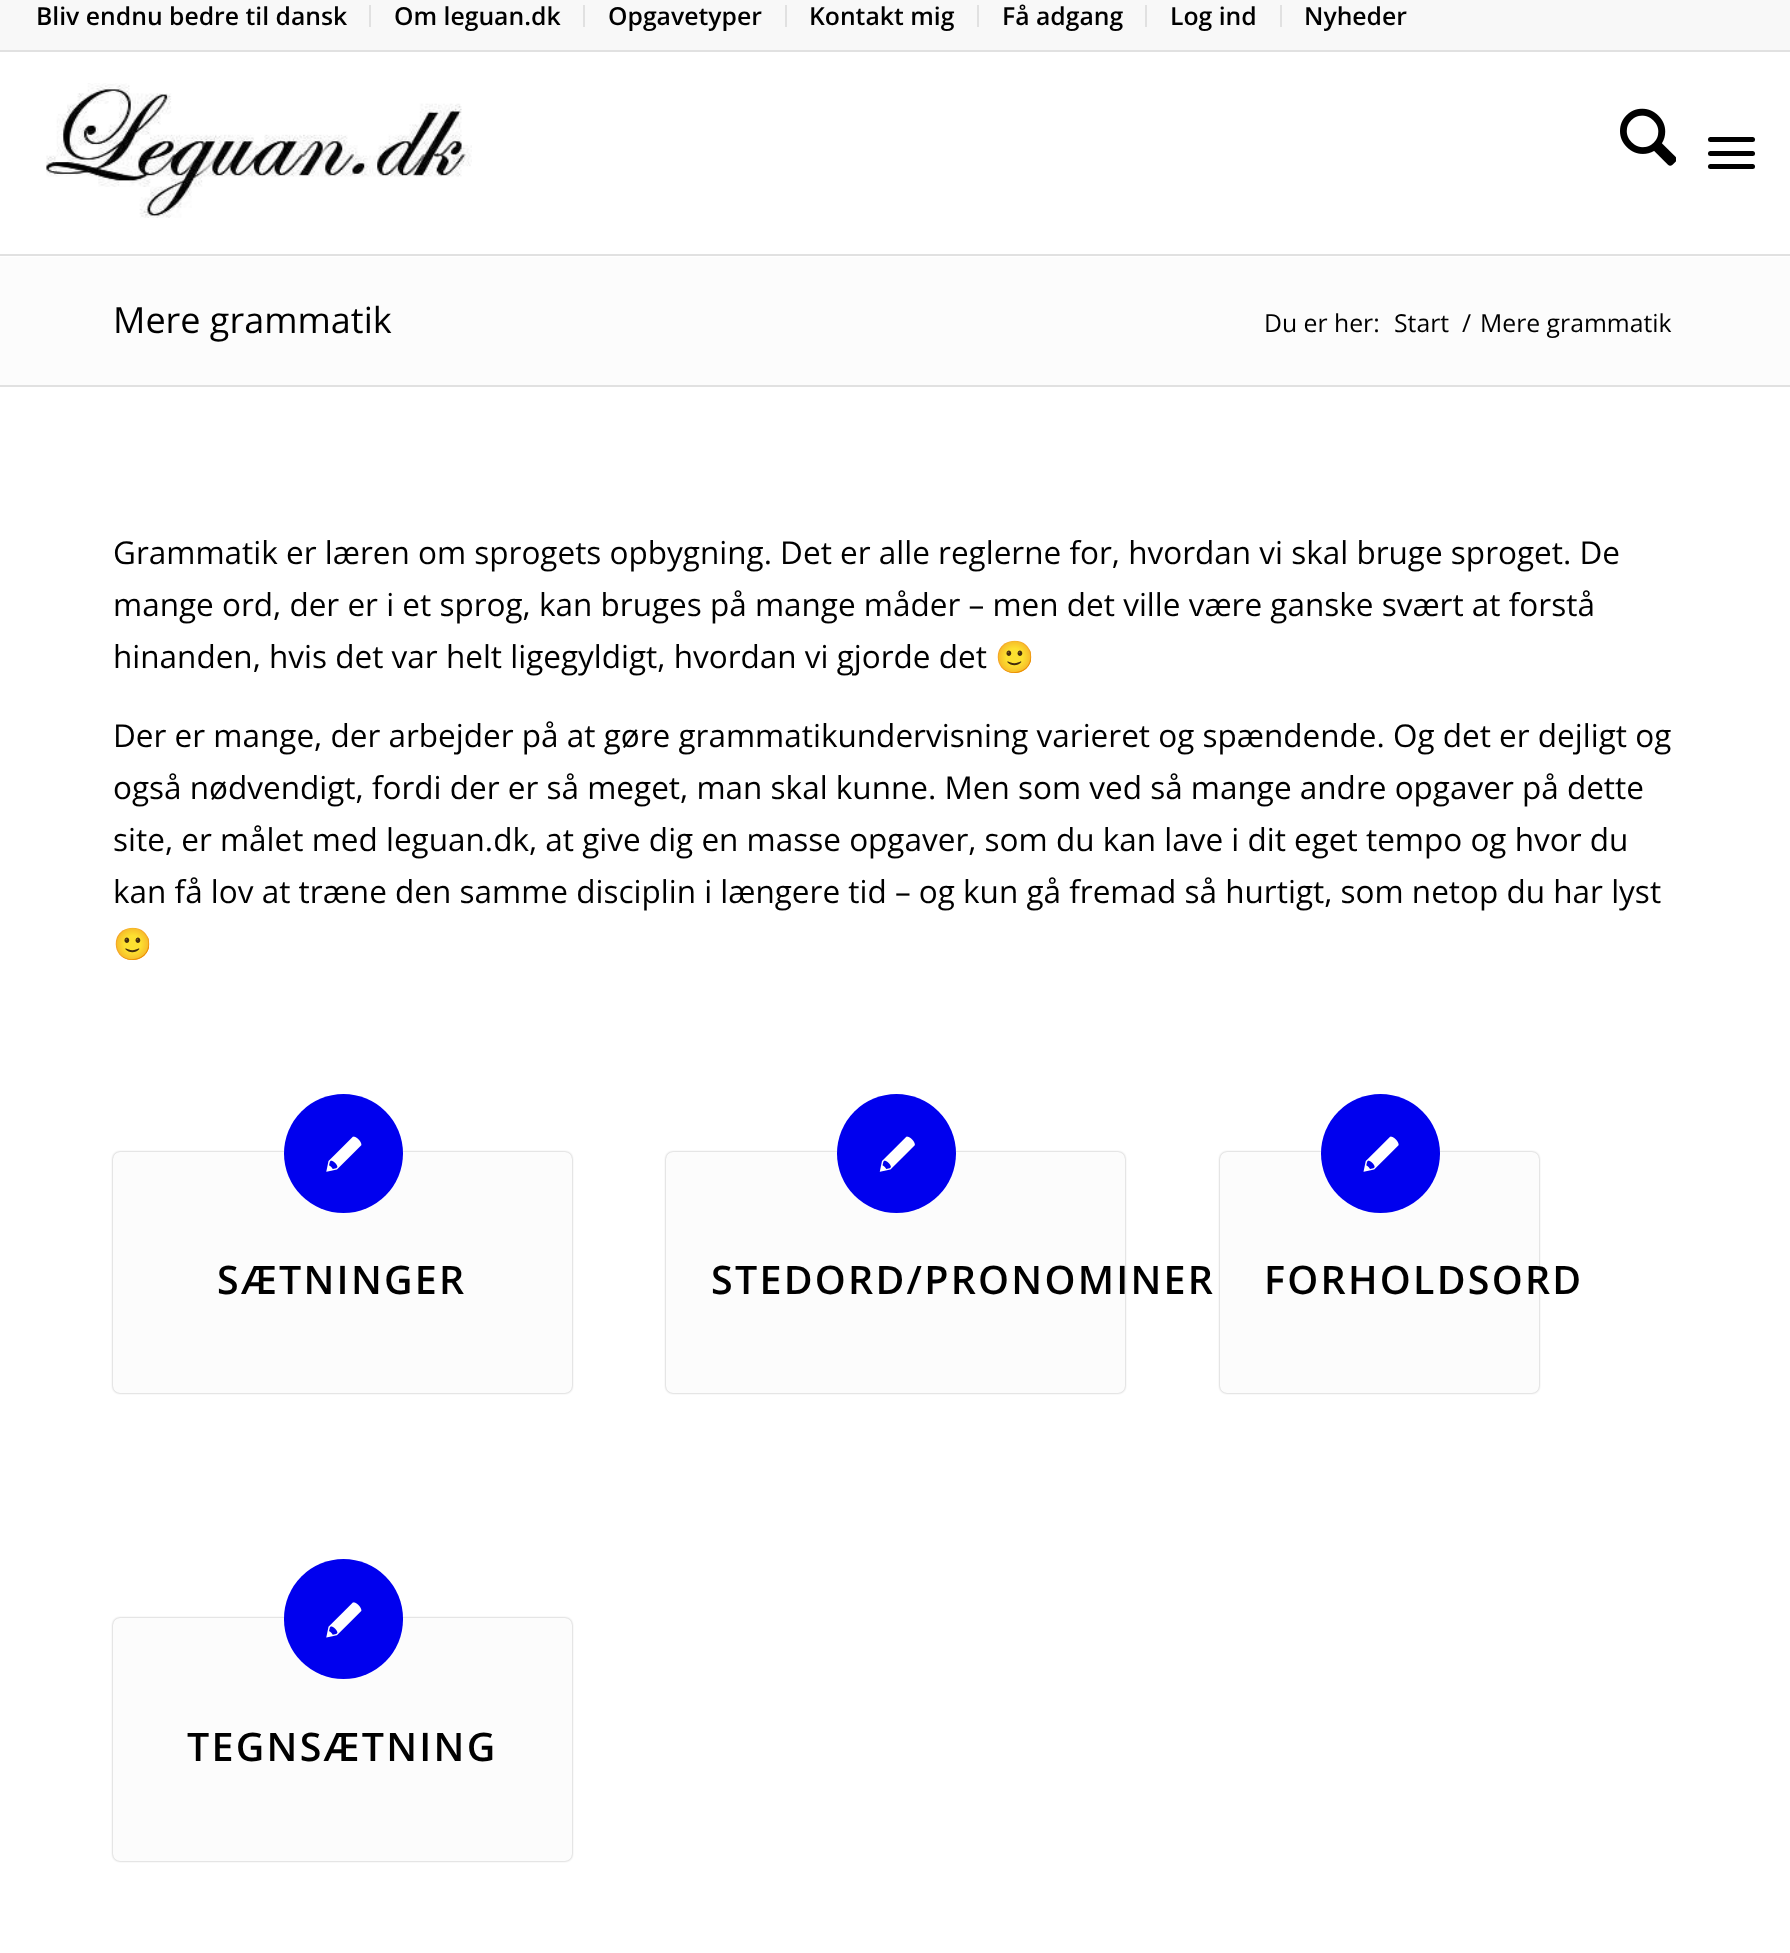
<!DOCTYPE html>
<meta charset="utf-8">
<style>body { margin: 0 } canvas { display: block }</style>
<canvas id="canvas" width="1790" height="1953"></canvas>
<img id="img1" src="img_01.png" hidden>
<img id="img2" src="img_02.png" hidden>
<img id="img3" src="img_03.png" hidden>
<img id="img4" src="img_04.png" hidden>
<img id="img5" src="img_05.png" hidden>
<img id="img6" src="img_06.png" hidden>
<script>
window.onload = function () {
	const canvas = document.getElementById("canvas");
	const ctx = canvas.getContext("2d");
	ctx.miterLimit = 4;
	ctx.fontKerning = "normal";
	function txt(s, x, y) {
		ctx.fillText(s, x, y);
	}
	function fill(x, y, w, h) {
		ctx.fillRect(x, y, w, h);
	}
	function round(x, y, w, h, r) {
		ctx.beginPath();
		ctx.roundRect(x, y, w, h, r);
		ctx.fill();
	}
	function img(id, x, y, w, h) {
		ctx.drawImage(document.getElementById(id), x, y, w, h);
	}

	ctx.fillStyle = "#FFFFFF";
	fill(0, 0, 1790, 1953);
	ctx.fillStyle = "#F8F8F8";
	fill(0, 0, 1790, 50);
	ctx.fillStyle = "#E1E1E1";
	fill(0, 50, 1790, 2);
	fill(369, 5, 2, 22);
	fill(583, 5, 2, 22);
	fill(785, 5, 2, 22);
	fill(977, 5, 2, 22);
	fill(1145, 5, 2, 22);
	fill(1280, 5, 2, 22);
	fill(0, 254, 1790, 2);
	img("img1", 46, 83, 426, 135);
	img("img2", 1620, 108, 56, 58);
	ctx.fillStyle = "#000000";
	round(1708, 151, 47, 5, 2.5);
	round(1708, 137, 47, 5, 2.5);
	round(1708, 164, 47, 5, 2.5);
	ctx.fillStyle = "#FCFCFC";
	fill(0, 257, 1790, 128);
	ctx.fillStyle = "#E1E1E1";
	fill(0, 385, 1790, 2);
	ctx.fillStyle = "rgba(0, 0, 0, 0.3)";
	ctx.filter = "blur(1px)";
	ctx.beginPath();
	ctx.roundRect(113, 1152, 459, 241, 7);
	ctx.fill();
	ctx.filter = "none";
	ctx.fillStyle = "#FCFCFC";
	round(113, 1152, 459, 241, 7);
	ctx.fillStyle = "#0000EE";
	ctx.beginPath();
	ctx.arc(343.5, 1153.5, 59.5, 0, Math.PI * 2);
	ctx.fill();
	img("img3", 326, 1136, 36, 36);
	ctx.fillStyle = "rgba(0, 0, 0, 0.3)";
	ctx.filter = "blur(1px)";
	ctx.beginPath();
	ctx.roundRect(666, 1152, 459, 241, 7);
	ctx.fill();
	ctx.filter = "none";
	ctx.fillStyle = "#FCFCFC";
	round(666, 1152, 459, 241, 7);
	ctx.fillStyle = "#0000EE";
	ctx.beginPath();
	ctx.arc(896.5, 1153.5, 59.5, 0, Math.PI * 2);
	ctx.fill();
	img("img4", 879, 1136, 36, 36);
	ctx.fillStyle = "rgba(0, 0, 0, 0.3)";
	ctx.filter = "blur(1px)";
	ctx.beginPath();
	ctx.roundRect(1220, 1152, 319, 241, 7);
	ctx.fill();
	ctx.filter = "none";
	ctx.fillStyle = "#FCFCFC";
	round(1220, 1152, 319, 241, 7);
	ctx.fillStyle = "#0000EE";
	ctx.beginPath();
	ctx.arc(1380.5, 1153.5, 59.5, 0, Math.PI * 2);
	ctx.fill();
	img("img5", 1363, 1136, 36, 36);
	ctx.fillStyle = "rgba(0, 0, 0, 0.3)";
	ctx.filter = "blur(1px)";
	ctx.beginPath();
	ctx.roundRect(113, 1618, 459, 243, 7);
	ctx.fill();
	ctx.filter = "none";
	ctx.fillStyle = "#FCFCFC";
	round(113, 1618, 459, 243, 7);
	ctx.fillStyle = "#0000EE";
	round(284, 1559, 119, 120, 59.5);
	img("img6", 326, 1602, 36, 36);
	ctx.font = "600 24.75px Open Sans";
	ctx.fillStyle = "#000000";
	txt("Bliv endnu bedre til dansk", 36, 25);
	txt("Om leguan.dk", 394, 25);
	txt("Opgavetyper", 608, 25);
	txt("Kontakt mig", 809, 25);
	txt("Få adgang", 1002, 25);
	txt("Log ind", 1170, 25);
	txt("Nyheder", 1304, 25);
	ctx.font = "36px Open Sans";
	txt("Mere grammatik", 113, 333);
	ctx.font = "24.75px Open Sans";
	txt("Du er her:", 1264, 332);
	txt("Start", 1394, 332);
	txt("/", 1462, 332);
	txt("Mere grammatik", 1480, 332);
	ctx.font = "31.5px Open Sans";
	txt("Grammatik er læren om sprogets opbygning. Det er alle reglerne for, hvordan vi skal bruge sproget. De", 113, 564);
	txt("mange ord, der er i et sprog, kan bruges på mange måder – men det ville være ganske svært at forstå", 113, 616);
	txt("hinanden, hvis det var helt ligegyldigt, hvordan vi gjorde det", 113, 668);
	ctx.font = "31.5px Noto Color Emoji";
	txt("🙂", 995, 668);
	ctx.font = "31.5px Open Sans";
	txt("Der er mange, der arbejder på at gøre grammatikundervisning varieret og spændende. Og det er dejligt og", 113, 747);
	txt("også nødvendigt, fordi der er så meget, man skal kunne. Men som ved så mange andre opgaver på dette", 113, 799);
	txt("site, er målet med leguan.dk, at give dig en masse opgaver, som du kan lave i dit eget tempo og hvor du", 113, 851);
	txt("kan få lov at træne den samme disciplin i længere tid – og kun gå fremad så hurtigt, som netop du har lyst", 113, 903);
	ctx.font = "31.5px Noto Color Emoji";
	txt("🙂", 113, 955);
	ctx.letterSpacing = "2.25px";
	ctx.font = "600 39.4px Open Sans";
	txt("SÆTNINGER", 217, 1294);
	txt("STEDORD/PRONOMINER", 711, 1294);
	txt("FORHOLDSORD", 1264, 1294);
	txt("TEGNSÆTNING", 187, 1761);
};
</script>
